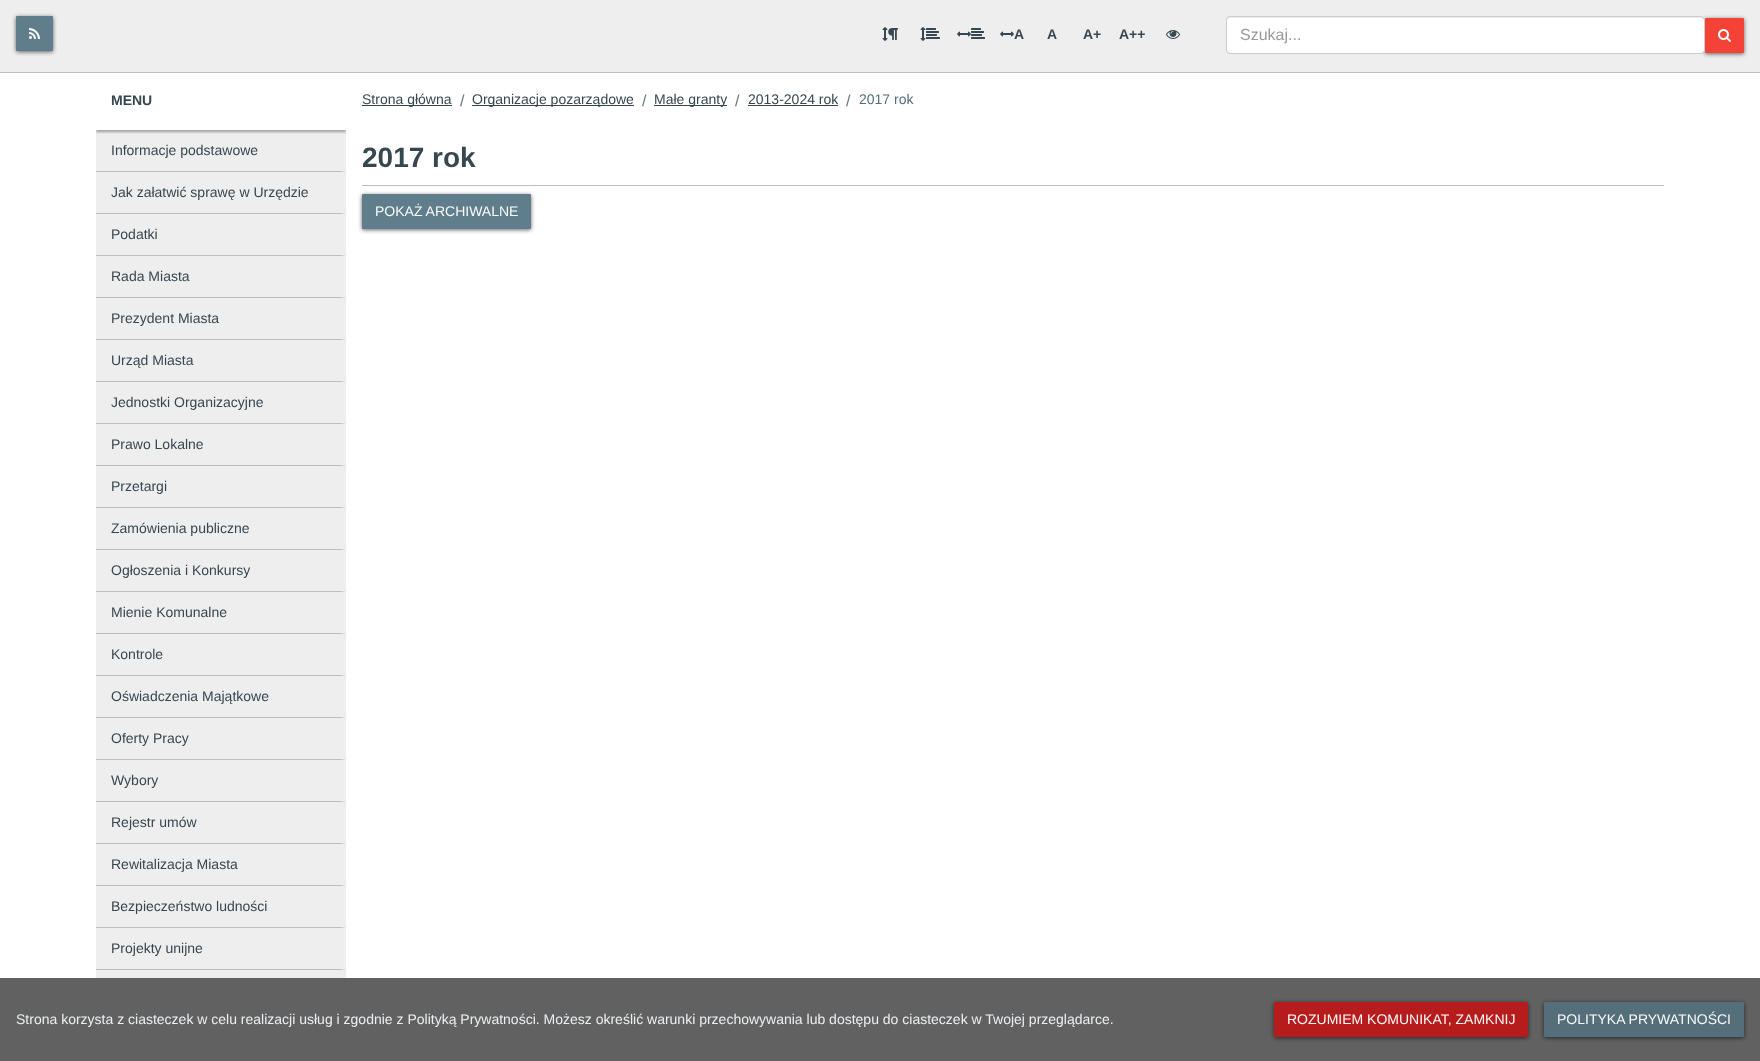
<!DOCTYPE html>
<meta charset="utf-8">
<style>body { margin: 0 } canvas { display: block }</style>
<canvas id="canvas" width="1760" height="1061"></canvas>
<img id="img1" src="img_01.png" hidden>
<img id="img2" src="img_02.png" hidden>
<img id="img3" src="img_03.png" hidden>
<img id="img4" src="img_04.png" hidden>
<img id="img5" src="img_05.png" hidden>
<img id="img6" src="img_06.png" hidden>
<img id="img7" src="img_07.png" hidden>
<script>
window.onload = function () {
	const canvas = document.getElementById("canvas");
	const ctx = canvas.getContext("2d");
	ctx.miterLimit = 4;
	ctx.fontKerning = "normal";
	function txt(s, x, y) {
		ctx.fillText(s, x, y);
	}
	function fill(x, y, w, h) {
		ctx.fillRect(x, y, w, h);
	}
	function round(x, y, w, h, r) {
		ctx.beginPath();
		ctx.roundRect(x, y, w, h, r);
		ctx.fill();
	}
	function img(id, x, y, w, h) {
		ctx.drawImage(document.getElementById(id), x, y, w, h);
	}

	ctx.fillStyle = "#FFFFFF";
	fill(0, 0, 1760, 1061);
	ctx.fillStyle = "#EEEEEE";
	fill(96, 130, 250, 848);
	ctx.save();
	ctx.beginPath();
	ctx.rect(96, 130, 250, 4);
	ctx.clip();
	ctx.fillStyle = "rgba(0, 0, 0, 0.24)";
	ctx.filter = "blur(1.5px)";
	ctx.beginPath();
	ctx.rect(96, 72, 250, 60);
	ctx.fill();
	ctx.filter = "none";
	ctx.restore();
	ctx.save();
	ctx.beginPath();
	ctx.rect(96, 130, 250, 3);
	ctx.clip();
	ctx.fillStyle = "rgba(0, 0, 0, 0.12)";
	ctx.filter = "blur(1.5px)";
	ctx.beginPath();
	ctx.rect(96, 72, 250, 60);
	ctx.fill();
	ctx.filter = "none";
	ctx.restore();
	fill(0, 0, 1760, 72);
	ctx.fillStyle = "#BDBDBD";
	fill(0, 72, 1760, 1);
	ctx.fillStyle = "rgba(0, 0, 0, 0.6)";
	ctx.filter = "blur(2px)";
	ctx.beginPath();
	ctx.roundRect(16, 17, 37, 35, 1);
	ctx.fill();
	ctx.filter = "none";
	ctx.fillStyle = "#607D8B";
	round(16, 16, 37, 35, 1);
	img("img1", 29, 28, 11, 11);
	img("img2", 882, 27, 6, 14);
	img("img3", 888, 28, 10, 12);
	img("img2", 920, 27, 6, 14);
	img("img4", 926, 28, 14, 11);
	img("img5", 957, 31, 14, 6);
	img("img4", 971, 28, 14, 11);
	img("img5", 1000, 31, 14, 6);
	img("img6", 1166, 30, 14, 9);
	ctx.fillStyle = "rgba(0, 0, 0, 0.6)";
	ctx.filter = "blur(2px)";
	ctx.beginPath();
	ctx.roundRect(1705, 19, 39, 35, 1);
	ctx.fill();
	ctx.filter = "none";
	ctx.fillStyle = "#FFFFFF";
	round(1227, 17, 477, 36, 3);
	ctx.fillStyle = "rgba(0, 0, 0, 0.07)";
	ctx.beginPath();
	ctx.moveTo(1230, 18);
	ctx.lineTo(1701, 18);
	ctx.bezierCurveTo(1703, 18, 1704, 19, 1704, 21);
	ctx.lineTo(1704, 20);
	ctx.bezierCurveTo(1704, 18, 1703, 17, 1701, 17);
	ctx.lineTo(1230, 17);
	ctx.bezierCurveTo(1228, 17, 1227, 18, 1227, 20);
	ctx.lineTo(1227, 21);
	ctx.bezierCurveTo(1227, 19, 1228, 18, 1230, 18);
	ctx.closePath();
	ctx.fill();
	ctx.beginPath();
	ctx.roundRect(1226.5, 16.5, 478, 37, 3.5);
	ctx.strokeStyle = "#CCCCCC";
	ctx.stroke();
	ctx.fillStyle = "#F44336";
	round(1705, 18, 39, 35, 1);
	img("img7", 1718, 29, 13, 13);
	ctx.fillStyle = "#BDBDBD";
	ctx.beginPath();
	ctx.moveTo(346, 172);
	ctx.lineTo(96, 172);
	ctx.lineTo(96, 171);
	ctx.lineTo(340, 171);
	ctx.closePath();
	ctx.fill();
	ctx.beginPath();
	ctx.moveTo(346, 214);
	ctx.lineTo(96, 214);
	ctx.lineTo(96, 213);
	ctx.lineTo(340, 213);
	ctx.closePath();
	ctx.fill();
	ctx.beginPath();
	ctx.moveTo(346, 256);
	ctx.lineTo(96, 256);
	ctx.lineTo(96, 255);
	ctx.lineTo(340, 255);
	ctx.closePath();
	ctx.fill();
	ctx.beginPath();
	ctx.moveTo(346, 298);
	ctx.lineTo(96, 298);
	ctx.lineTo(96, 297);
	ctx.lineTo(340, 297);
	ctx.closePath();
	ctx.fill();
	ctx.beginPath();
	ctx.moveTo(346, 340);
	ctx.lineTo(96, 340);
	ctx.lineTo(96, 339);
	ctx.lineTo(340, 339);
	ctx.closePath();
	ctx.fill();
	ctx.beginPath();
	ctx.moveTo(346, 382);
	ctx.lineTo(96, 382);
	ctx.lineTo(96, 381);
	ctx.lineTo(340, 381);
	ctx.closePath();
	ctx.fill();
	ctx.beginPath();
	ctx.moveTo(346, 424);
	ctx.lineTo(96, 424);
	ctx.lineTo(96, 423);
	ctx.lineTo(340, 423);
	ctx.closePath();
	ctx.fill();
	ctx.beginPath();
	ctx.moveTo(346, 466);
	ctx.lineTo(96, 466);
	ctx.lineTo(96, 465);
	ctx.lineTo(340, 465);
	ctx.closePath();
	ctx.fill();
	ctx.beginPath();
	ctx.moveTo(346, 508);
	ctx.lineTo(96, 508);
	ctx.lineTo(96, 507);
	ctx.lineTo(340, 507);
	ctx.closePath();
	ctx.fill();
	ctx.beginPath();
	ctx.moveTo(346, 550);
	ctx.lineTo(96, 550);
	ctx.lineTo(96, 549);
	ctx.lineTo(340, 549);
	ctx.closePath();
	ctx.fill();
	ctx.beginPath();
	ctx.moveTo(346, 592);
	ctx.lineTo(96, 592);
	ctx.lineTo(96, 591);
	ctx.lineTo(340, 591);
	ctx.closePath();
	ctx.fill();
	ctx.beginPath();
	ctx.moveTo(346, 634);
	ctx.lineTo(96, 634);
	ctx.lineTo(96, 633);
	ctx.lineTo(340, 633);
	ctx.closePath();
	ctx.fill();
	ctx.beginPath();
	ctx.moveTo(346, 676);
	ctx.lineTo(96, 676);
	ctx.lineTo(96, 675);
	ctx.lineTo(340, 675);
	ctx.closePath();
	ctx.fill();
	ctx.beginPath();
	ctx.moveTo(346, 718);
	ctx.lineTo(96, 718);
	ctx.lineTo(96, 717);
	ctx.lineTo(340, 717);
	ctx.closePath();
	ctx.fill();
	ctx.beginPath();
	ctx.moveTo(346, 760);
	ctx.lineTo(96, 760);
	ctx.lineTo(96, 759);
	ctx.lineTo(340, 759);
	ctx.closePath();
	ctx.fill();
	ctx.beginPath();
	ctx.moveTo(346, 802);
	ctx.lineTo(96, 802);
	ctx.lineTo(96, 801);
	ctx.lineTo(340, 801);
	ctx.closePath();
	ctx.fill();
	ctx.beginPath();
	ctx.moveTo(346, 844);
	ctx.lineTo(96, 844);
	ctx.lineTo(96, 843);
	ctx.lineTo(340, 843);
	ctx.closePath();
	ctx.fill();
	ctx.beginPath();
	ctx.moveTo(346, 886);
	ctx.lineTo(96, 886);
	ctx.lineTo(96, 885);
	ctx.lineTo(340, 885);
	ctx.closePath();
	ctx.fill();
	ctx.beginPath();
	ctx.moveTo(346, 928);
	ctx.lineTo(96, 928);
	ctx.lineTo(96, 927);
	ctx.lineTo(340, 927);
	ctx.closePath();
	ctx.fill();
	ctx.beginPath();
	ctx.moveTo(346, 970);
	ctx.lineTo(96, 970);
	ctx.lineTo(96, 969);
	ctx.lineTo(340, 969);
	ctx.closePath();
	ctx.fill();
	ctx.fillStyle = "#37474F";
	fill(362, 105, 90, 1);
	fill(472, 105, 162, 1);
	fill(654, 105, 73, 1);
	fill(748, 105, 90, 1);
	ctx.fillStyle = "#BDBDBD";
	fill(362, 185, 1302, 1);
	ctx.fillStyle = "rgba(0, 0, 0, 0.6)";
	ctx.filter = "blur(2px)";
	ctx.beginPath();
	ctx.roundRect(362, 195, 169, 35, 1);
	ctx.fill();
	ctx.filter = "none";
	ctx.fillStyle = "#607D8B";
	round(362, 194, 169, 35, 1);
	ctx.fillStyle = "#616161";
	fill(0, 978, 1760, 83);
	ctx.fillStyle = "rgba(0, 0, 0, 0.6)";
	ctx.filter = "blur(2px)";
	ctx.beginPath();
	ctx.roundRect(1274, 1003, 254, 35, 1);
	ctx.fill();
	ctx.filter = "none";
	ctx.fillStyle = "#B71C1C";
	round(1274, 1002, 254, 35, 1);
	ctx.fillStyle = "rgba(0, 0, 0, 0.6)";
	ctx.filter = "blur(2px)";
	ctx.beginPath();
	ctx.roundRect(1544, 1003, 200, 35, 1);
	ctx.fill();
	ctx.filter = "none";
	ctx.fillStyle = "#546E7A";
	round(1544, 1002, 200, 35, 1);
	ctx.font = "bold 14px Liberation Sans";
	ctx.fillStyle = "#37474F";
	txt("A", 1014, 39);
	txt("A", 1047, 39);
	txt("A+", 1083, 39);
	txt("A++", 1119, 39);
	ctx.font = "16px Liberation Sans";
	ctx.fillStyle = "#999999";
	txt("Szukaj...", 1240, 40);
	ctx.font = "bold 14px Liberation Sans";
	ctx.fillStyle = "#37474F";
	txt("MENU", 111, 105);
	ctx.font = "14px Liberation Sans";
	txt("Informacje podstawowe", 111, 155);
	txt("Jak załatwić sprawę w Urzędzie", 111, 197);
	txt("Podatki", 111, 239);
	txt("Rada Miasta", 111, 281);
	txt("Prezydent Miasta", 111, 323);
	txt("Urząd Miasta", 111, 365);
	txt("Jednostki Organizacyjne", 111, 407);
	txt("Prawo Lokalne", 111, 449);
	txt("Przetargi", 111, 491);
	txt("Zamówienia publiczne", 111, 533);
	txt("Ogłoszenia i Konkursy", 111, 575);
	txt("Mienie Komunalne", 111, 617);
	txt("Kontrole", 111, 659);
	txt("Oświadczenia Majątkowe", 111, 701);
	txt("Oferty Pracy", 111, 743);
	txt("Wybory", 111, 785);
	txt("Rejestr umów", 111, 827);
	txt("Rewitalizacja Miasta", 111, 869);
	txt("Bezpieczeństwo ludności", 111, 911);
	txt("Projekty unijne", 111, 953);
	txt("Strona główna", 362, 104);
	ctx.font = "16px Liberation Sans";
	ctx.fillStyle = "#6C757D";
	txt("/", 460, 106);
	ctx.font = "14px Liberation Sans";
	ctx.fillStyle = "#37474F";
	txt("Organizacje pozarządowe", 472, 104);
	ctx.font = "16px Liberation Sans";
	ctx.fillStyle = "#6C757D";
	txt("/", 642, 106);
	ctx.font = "14px Liberation Sans";
	ctx.fillStyle = "#37474F";
	txt("Małe granty", 654, 104);
	ctx.font = "16px Liberation Sans";
	ctx.fillStyle = "#6C757D";
	txt("/", 735, 106);
	ctx.font = "14px Liberation Sans";
	ctx.fillStyle = "#37474F";
	txt("2013-2024 rok", 748, 104);
	ctx.font = "16px Liberation Sans";
	ctx.fillStyle = "#6C757D";
	txt("/", 846, 106);
	ctx.font = "14px Liberation Sans";
	ctx.fillStyle = "#546E7A";
	txt("2017 rok", 859, 104);
	ctx.font = "bold 28px Liberation Sans";
	ctx.fillStyle = "#37474F";
	txt("2017 rok", 362, 167);
	ctx.font = "14px Liberation Sans";
	ctx.fillStyle = "#FAFAFA";
	txt("POKAŻ ARCHIWALNE", 375, 216);
	ctx.fillStyle = "#ECEFF1";
	txt("Strona korzysta z ciasteczek w celu realizacji usług i zgodnie z Polityką Prywatności. Możesz określić warunki przechowywania lub dostępu do ciasteczek w Twojej przeglądarce.", 16, 1024);
	ctx.fillStyle = "#FAFAFA";
	txt("ROZUMIEM KOMUNIKAT, ZAMKNIJ", 1287, 1024);
	txt("POLITYKA PRYWATNOŚCI", 1557, 1024);
};
</script>
